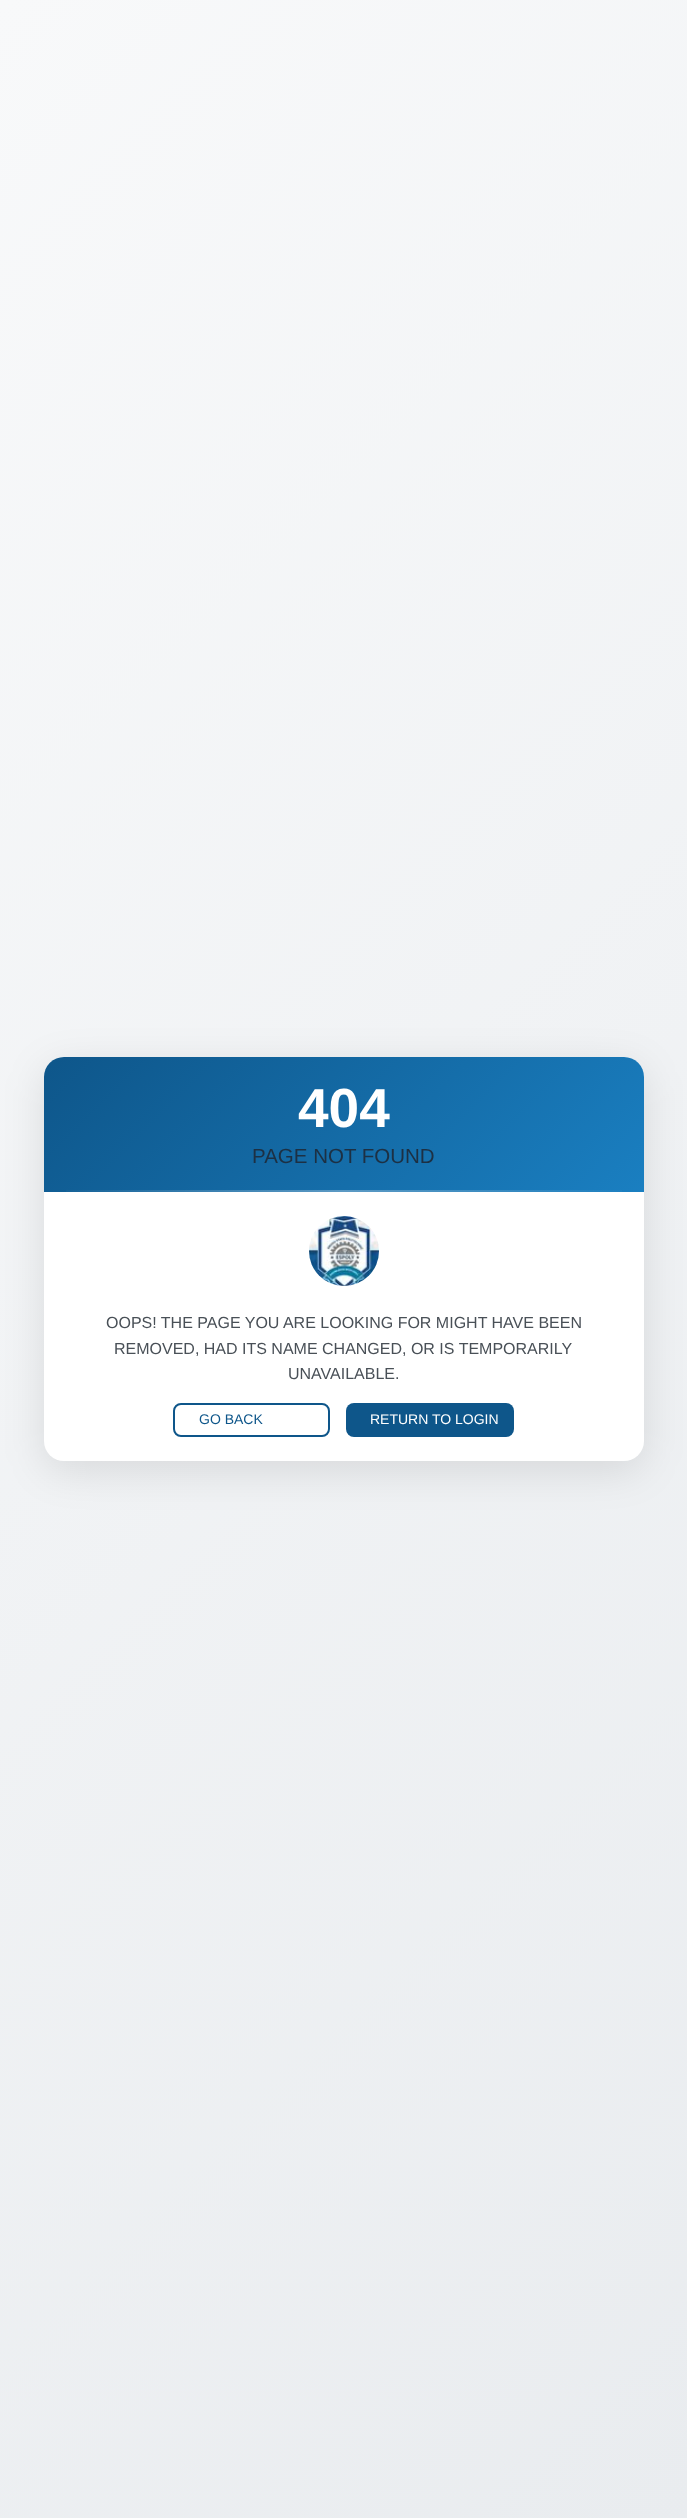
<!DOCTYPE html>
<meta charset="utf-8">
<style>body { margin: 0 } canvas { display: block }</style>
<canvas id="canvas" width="687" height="2518"></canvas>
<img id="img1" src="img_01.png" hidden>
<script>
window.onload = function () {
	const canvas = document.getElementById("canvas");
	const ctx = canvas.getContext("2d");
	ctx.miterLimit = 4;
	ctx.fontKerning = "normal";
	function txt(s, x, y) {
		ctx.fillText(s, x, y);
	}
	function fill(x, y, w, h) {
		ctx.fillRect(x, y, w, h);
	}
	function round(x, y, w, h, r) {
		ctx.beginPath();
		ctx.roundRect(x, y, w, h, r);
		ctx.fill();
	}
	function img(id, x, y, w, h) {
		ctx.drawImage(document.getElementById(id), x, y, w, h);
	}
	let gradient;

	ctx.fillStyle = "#FFFFFF";
	fill(0, 0, 687, 2518);
	gradient = ctx.createLinearGradient(-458, 458, 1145, 2060);
	gradient.addColorStop(0, "#F8F9FA");
	gradient.addColorStop(1, "#E9ECEF");
	ctx.fillStyle = gradient;
	fill(0, 0, 687, 2518);
	ctx.fillStyle = "rgba(0, 0, 0, 0.1)";
	ctx.filter = "blur(20px)";
	ctx.beginPath();
	ctx.roundRect(44, 1067, 600, 404, 20);
	ctx.fill();
	ctx.filter = "none";
	ctx.fillStyle = "#FFFFFF";
	round(44, 1057, 600, 404, 20);
	gradient = ctx.createLinearGradient(160, 941, 528, 1308);
	gradient.addColorStop(0, "#0E568A");
	gradient.addColorStop(1, "#1A7FC1");
	ctx.fillStyle = gradient;
	ctx.beginPath();
	ctx.roundRect(44, 1057, 600, 135, [20, 20, 0, 0]);
	ctx.fill();
	gradient = ctx.createLinearGradient(44, 1192, 644, 1192);
	gradient.addColorStop(0, "rgba(255, 255, 255, 0)");
	gradient.addColorStop(0.5, "rgba(255, 255, 255, 0.3)");
	gradient.addColorStop(1, "rgba(255, 255, 255, 0)");
	ctx.fillStyle = gradient;
	fill(66, 1190, 556, 2);
	img("img1", 309, 1216, 70, 70);
	ctx.beginPath();
	ctx.roundRect(174, 1404, 155, 32, 7);
	ctx.strokeStyle = "#0E568A";
	ctx.lineWidth = 2;
	ctx.stroke();
	ctx.fillStyle = "#0E568A";
	round(346, 1403, 168, 34, 8);
	ctx.font = "bold 55px Liberation Sans";
	ctx.fillStyle = "#FFFFFF";
	txt("404", 298, 1127);
	ctx.font = "20.5px Liberation Sans";
	ctx.fillStyle = "#1D3043";
	txt("PAGE NOT FOUND", 252, 1163);
	ctx.font = "16px Liberation Sans";
	ctx.fillStyle = "#495057";
	txt("OOPS! THE PAGE YOU ARE LOOKING FOR MIGHT HAVE BEEN", 106, 1328);
	txt("REMOVED, HAD ITS NAME CHANGED, OR IS TEMPORARILY", 114, 1354);
	txt("UNAVAILABLE.", 288, 1379);
	ctx.font = "14px Liberation Sans";
	ctx.fillStyle = "#0E568A";
	txt("GO BACK", 199, 1424);
	ctx.fillStyle = "#FFFFFF";
	txt("RETURN TO LOGIN", 370, 1424);
};
</script>
